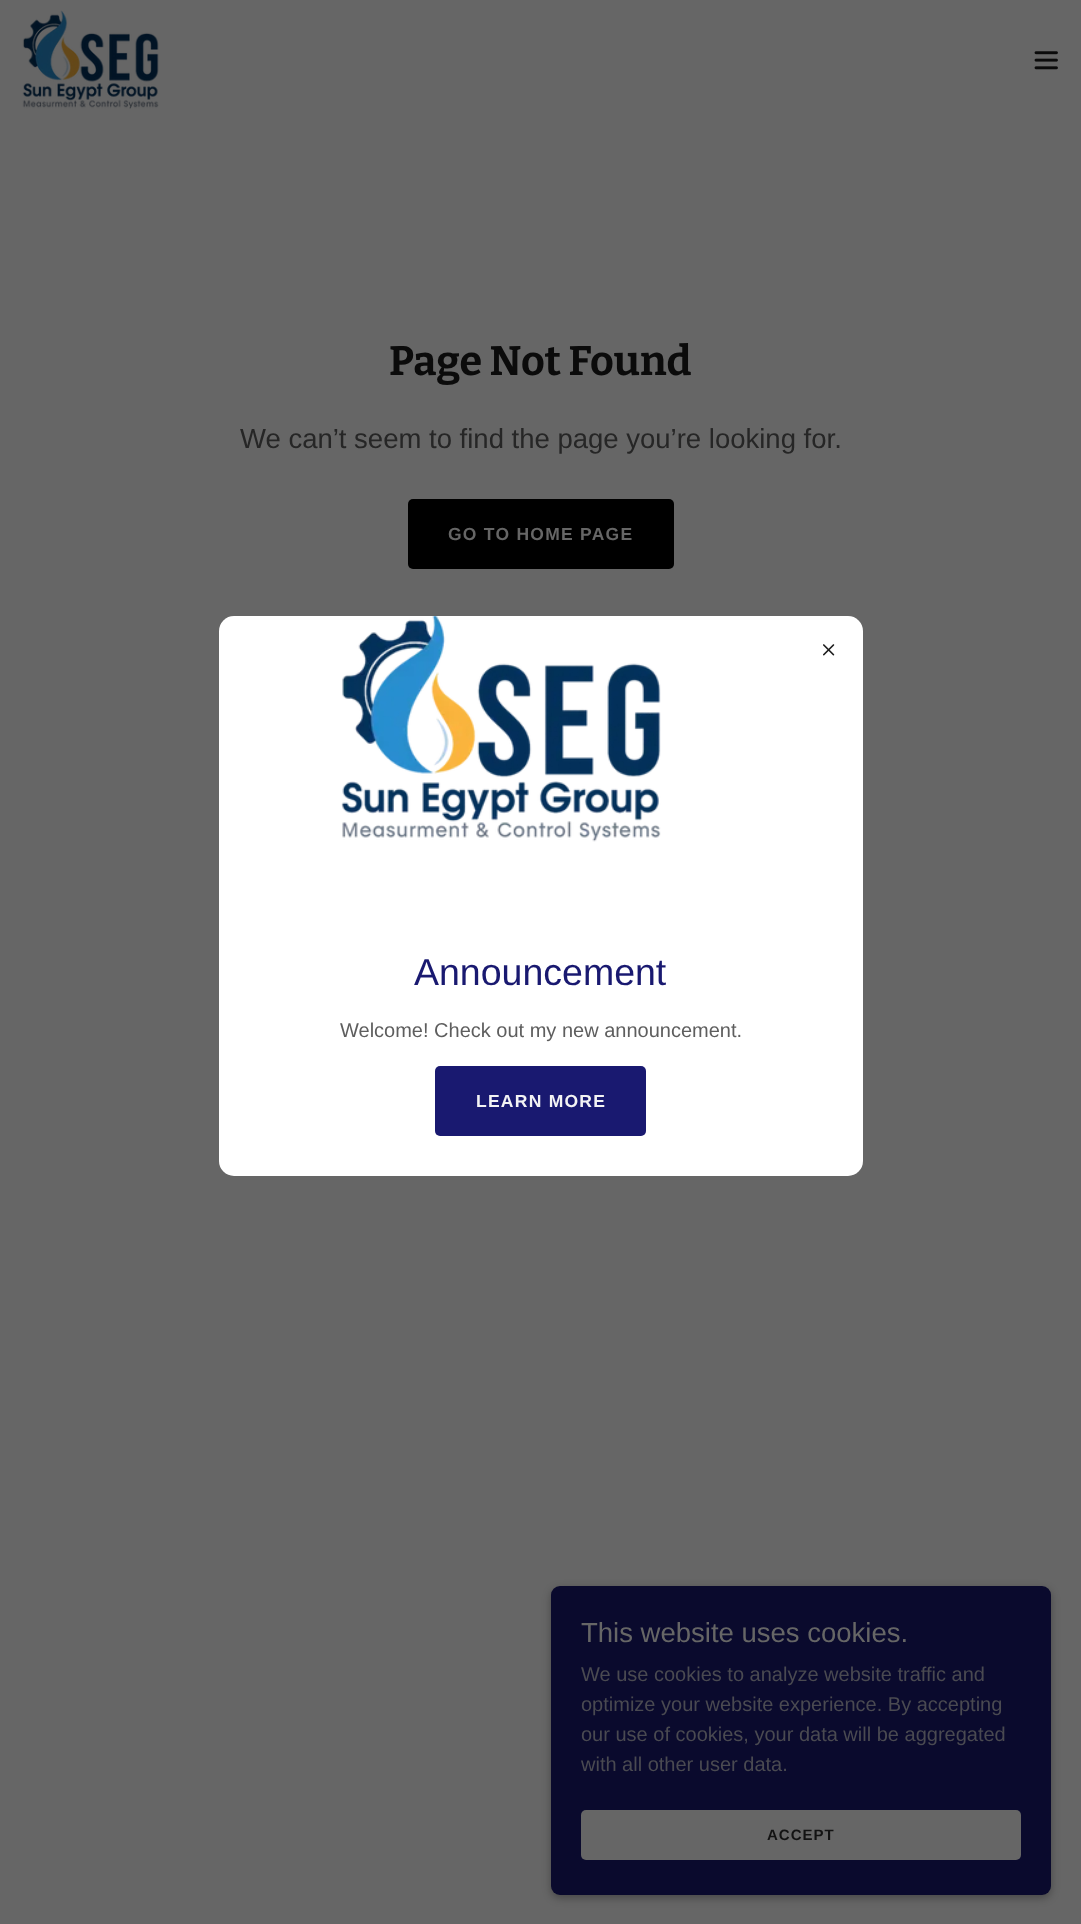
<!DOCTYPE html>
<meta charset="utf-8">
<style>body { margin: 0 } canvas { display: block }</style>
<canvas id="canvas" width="1081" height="1924"></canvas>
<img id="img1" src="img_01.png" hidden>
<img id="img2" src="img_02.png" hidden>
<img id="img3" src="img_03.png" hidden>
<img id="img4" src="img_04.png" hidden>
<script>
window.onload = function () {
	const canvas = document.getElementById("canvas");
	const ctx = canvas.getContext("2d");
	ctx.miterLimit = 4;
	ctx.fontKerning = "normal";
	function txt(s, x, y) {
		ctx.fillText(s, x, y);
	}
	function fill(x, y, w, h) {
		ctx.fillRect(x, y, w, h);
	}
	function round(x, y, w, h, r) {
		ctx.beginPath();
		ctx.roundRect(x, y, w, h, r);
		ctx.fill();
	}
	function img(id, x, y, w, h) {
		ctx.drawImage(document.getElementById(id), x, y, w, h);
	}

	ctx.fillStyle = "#666666";
	fill(0, 0, 1081, 1924);
	img("img1", 22, 10, 137, 99);
	img("img2", 1034, 51, 24, 19);
	ctx.fillStyle = "#000000";
	round(408, 499, 266, 70, 5);
	ctx.fillStyle = "#FFFFFF";
	round(219, 616, 644, 560, 15);
	img("img3", 823, 644, 12, 12);
	img("img4", 341, 616, 320, 226);
	ctx.fillStyle = "#191970";
	round(435, 1066, 211, 70, 5);
	ctx.fillStyle = "rgba(0, 0, 0, 0.3)";
	ctx.filter = "blur(4px)";
	ctx.beginPath();
	ctx.roundRect(551, 1589, 500, 309, 9);
	ctx.fill();
	ctx.filter = "none";
	ctx.fillStyle = "#0A0A2D";
	round(551, 1586, 500, 309, 9);
	ctx.fillStyle = "#666666";
	round(581, 1810, 440, 50, 5);
	ctx.font = "100 41.25px Bitter";
	ctx.fillStyle = "#0B0B0B";
	txt("Page Not Found", 389, 375);
	ctx.font = "27.5px Liberation Sans";
	ctx.fillStyle = "#262626";
	txt("We can’t seem to find the page you’re looking for.", 240, 448);
	ctx.letterSpacing = "1.25px";
	ctx.font = "bold 17.5px Liberation Sans";
	ctx.fillStyle = "#666666";
	txt("GO TO HOME PAGE", 448, 540);
	ctx.letterSpacing = "0px";
	ctx.font = "37.5px Liberation Sans";
	ctx.fillStyle = "#191970";
	txt("Announcement", 414, 985);
	ctx.font = "20px Liberation Sans";
	ctx.fillStyle = "#5E5E5E";
	txt("Welcome! Check out my new announcement.", 340, 1037);
	ctx.letterSpacing = "1.25px";
	ctx.font = "bold 17.5px Liberation Sans";
	ctx.fillStyle = "#F3F3F4";
	txt("LEARN MORE", 476, 1107);
	ctx.letterSpacing = "0px";
	ctx.font = "27.5px Liberation Sans";
	ctx.fillStyle = "#666666";
	txt("This website uses cookies.", 581, 1642);
	ctx.font = "20px Liberation Sans";
	ctx.fillStyle = "#4A4A51";
	txt("We use cookies to analyze website traffic and", 581, 1681);
	txt("optimize your website experience. By accepting", 581, 1711);
	txt("our use of cookies, your data will be aggregated", 581, 1741);
	txt("with all other user data.", 581, 1771);
	ctx.letterSpacing = "1px";
	ctx.font = "bold 15px Liberation Sans";
	ctx.fillStyle = "#131313";
	txt("ACCEPT", 767, 1840);
};
</script>
